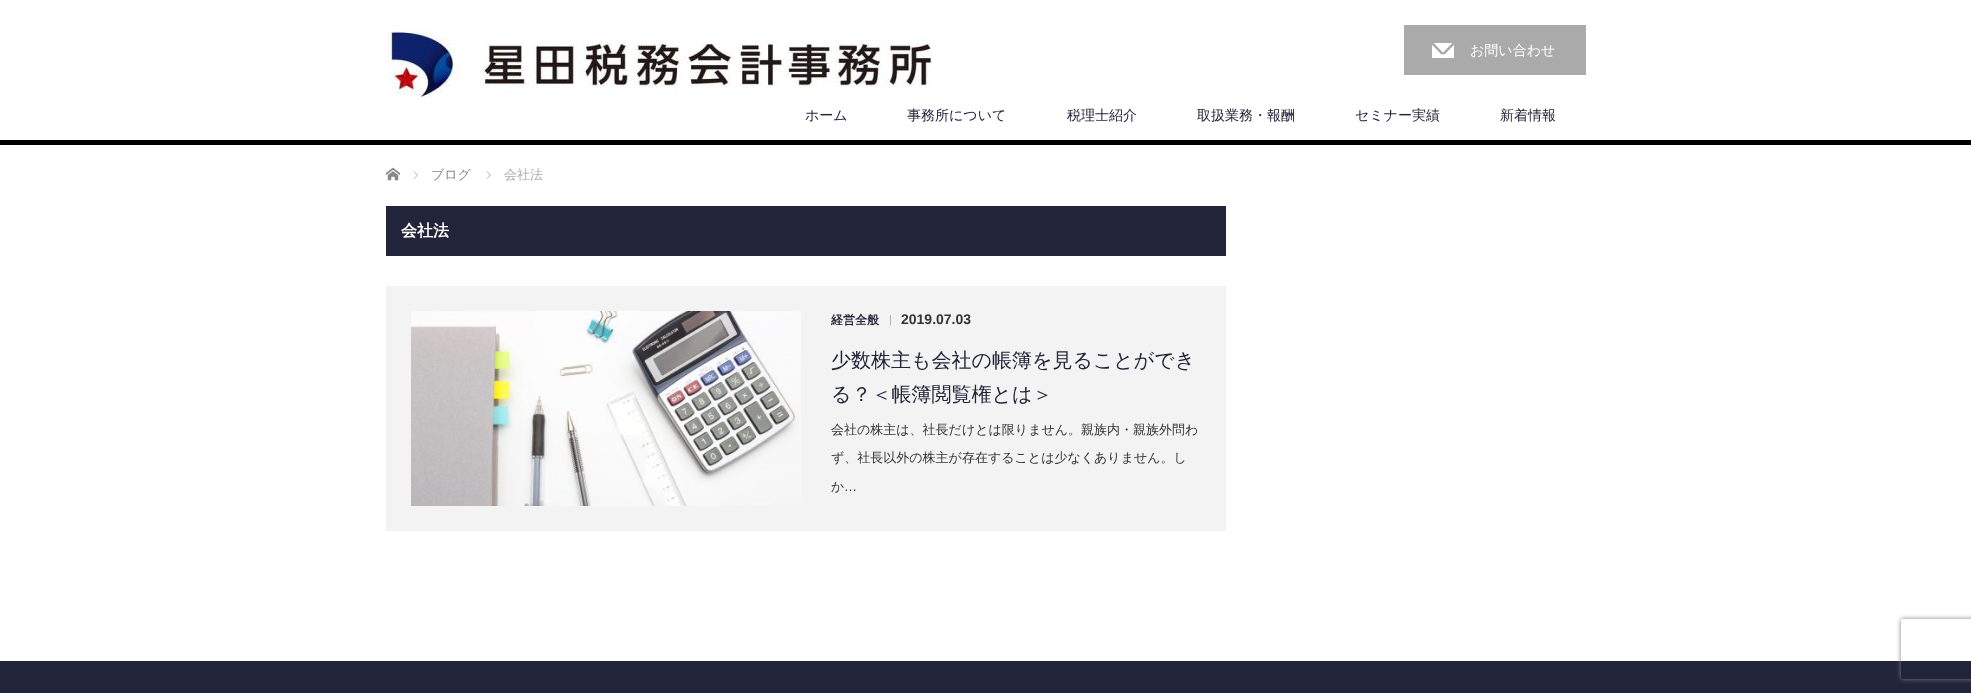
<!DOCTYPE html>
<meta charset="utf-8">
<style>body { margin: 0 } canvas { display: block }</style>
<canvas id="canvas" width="1971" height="693"></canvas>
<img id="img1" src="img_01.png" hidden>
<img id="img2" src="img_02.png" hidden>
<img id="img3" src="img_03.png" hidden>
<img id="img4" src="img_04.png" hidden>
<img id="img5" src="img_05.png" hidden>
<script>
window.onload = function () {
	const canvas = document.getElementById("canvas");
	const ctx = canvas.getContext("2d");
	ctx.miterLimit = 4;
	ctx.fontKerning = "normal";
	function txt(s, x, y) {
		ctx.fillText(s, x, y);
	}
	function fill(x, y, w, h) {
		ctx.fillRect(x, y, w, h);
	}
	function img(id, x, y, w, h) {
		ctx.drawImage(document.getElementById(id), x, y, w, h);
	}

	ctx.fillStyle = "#FFFFFF";
	fill(0, 0, 1971, 693);
	ctx.fillStyle = "#000000";
	fill(0, 140, 1971, 5);
	img("img1", 387, 31, 546, 68);
	ctx.fillStyle = "#AAAAAA";
	fill(1404, 25, 182, 50);
	img("img2", 1432, 43, 22, 15);
	img("img3", 386, 167, 14, 14);
	img("img4", 413, 171, 5, 8);
	img("img4", 486, 171, 5, 8);
	ctx.fillStyle = "#222439";
	fill(386, 206, 840, 50);
	ctx.fillStyle = "#F3F3F3";
	fill(386, 286, 840, 245);
	img("img5", 411, 311, 390, 195);
	ctx.fillStyle = "#222439";
	fill(0, 661, 1971, 32);
	ctx.save();
	ctx.beginPath();
	ctx.moveTo(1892, 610);
	ctx.lineTo(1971, 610);
	ctx.lineTo(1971, 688);
	ctx.lineTo(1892, 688);
	ctx.closePath();
	ctx.moveTo(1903, 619);
	ctx.lineTo(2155, 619);
	ctx.bezierCurveTo(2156, 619, 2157, 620, 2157, 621);
	ctx.lineTo(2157, 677);
	ctx.bezierCurveTo(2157, 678, 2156, 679, 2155, 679);
	ctx.lineTo(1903, 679);
	ctx.bezierCurveTo(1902, 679, 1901, 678, 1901, 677);
	ctx.lineTo(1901, 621);
	ctx.bezierCurveTo(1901, 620, 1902, 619, 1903, 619);
	ctx.closePath();
	ctx.clip("evenodd");
	ctx.fillStyle = "#808080";
	ctx.filter = "blur(2.5px)";
	ctx.beginPath();
	ctx.roundRect(1901, 619, 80, 60, 2);
	ctx.fill();
	ctx.filter = "none";
	ctx.restore();
	ctx.font = "500 14px WenQuanYi Zen Hei";
	ctx.fillStyle = "#FFFFFF";
	txt("お問い合わせ", 1470, 55);
	ctx.fillStyle = "#222439";
	txt("ホーム", 805, 120);
	txt("事務所について", 907, 120);
	txt("税理士紹介", 1067, 120);
	txt("取扱業務・報酬", 1197, 120);
	txt("セミナー実績", 1355, 120);
	txt("新着情報", 1500, 120);
	ctx.font = "500 13px WenQuanYi Zen Hei";
	ctx.fillStyle = "#888888";
	txt("ブログ", 431, 179);
	ctx.fillStyle = "#AAAAAA";
	txt("会社法", 504, 179);
	ctx.font = "bold 16px WenQuanYi Zen Hei";
	ctx.fillStyle = "#FFFFFF";
	txt("会社法", 401, 236);
	ctx.font = "bold 12px WenQuanYi Zen Hei";
	ctx.fillStyle = "#222439";
	txt("経営全般", 831, 324);
	ctx.font = "11px Liberation Sans";
	ctx.fillStyle = "#AAAAAA";
	txt("|", 889, 323);
	ctx.font = "bold 14px Liberation Sans";
	ctx.fillStyle = "#333333";
	txt("2019.07.03", 901, 324);
	ctx.font = "500 20px WenQuanYi Zen Hei";
	ctx.fillStyle = "#222439";
	txt("少数株主も会社の帳簿を見ることができ", 831, 367);
	txt("る？＜帳簿閲覧権とは＞", 831, 401);
	ctx.font = "500 13px WenQuanYi Zen Hei";
	ctx.fillStyle = "#333333";
	txt("会社の株主は、社長だけとは限りません。親族内・親族外問わ", 831, 434);
	txt("ず、社長以外の株主が存在することは少なくありません。し", 831, 462);
	txt("か", 831, 491);
	ctx.font = "13px Liberation Sans";
	txt("…", 844, 491);
};
</script>
